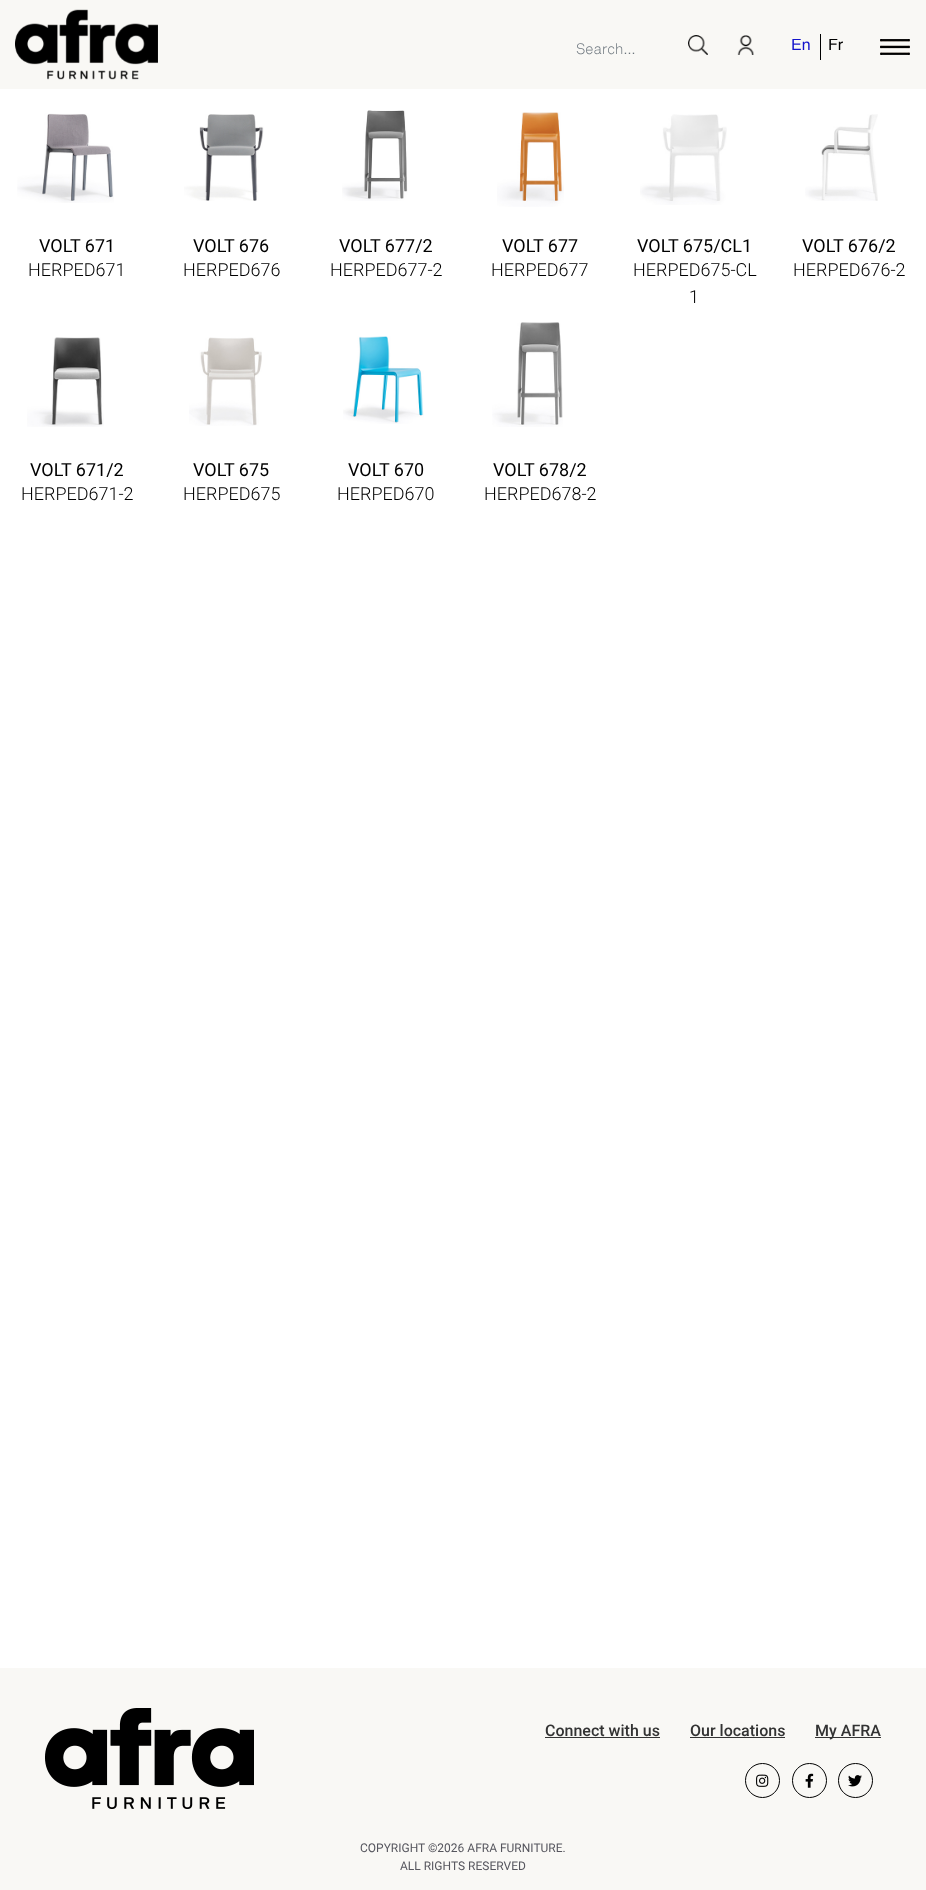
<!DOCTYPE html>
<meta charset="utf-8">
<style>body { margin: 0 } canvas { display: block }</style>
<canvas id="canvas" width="926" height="1890"></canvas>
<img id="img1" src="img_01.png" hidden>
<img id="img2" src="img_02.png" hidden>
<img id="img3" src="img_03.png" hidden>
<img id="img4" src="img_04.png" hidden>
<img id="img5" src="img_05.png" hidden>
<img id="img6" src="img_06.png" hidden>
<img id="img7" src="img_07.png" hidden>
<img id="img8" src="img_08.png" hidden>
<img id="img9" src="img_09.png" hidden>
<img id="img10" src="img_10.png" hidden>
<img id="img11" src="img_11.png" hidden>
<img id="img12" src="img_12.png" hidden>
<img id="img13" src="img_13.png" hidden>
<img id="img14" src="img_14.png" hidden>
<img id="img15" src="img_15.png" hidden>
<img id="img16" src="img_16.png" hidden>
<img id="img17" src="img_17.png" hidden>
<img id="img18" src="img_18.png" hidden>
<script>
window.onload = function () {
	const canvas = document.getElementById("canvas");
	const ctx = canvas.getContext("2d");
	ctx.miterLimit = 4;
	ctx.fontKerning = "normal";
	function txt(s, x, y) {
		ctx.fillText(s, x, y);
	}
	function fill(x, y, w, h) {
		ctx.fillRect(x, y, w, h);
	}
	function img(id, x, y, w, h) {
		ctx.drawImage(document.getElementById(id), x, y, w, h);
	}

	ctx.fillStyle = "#FFFFFF";
	fill(0, 0, 926, 1890);
	ctx.fillStyle = "#F9F8F5";
	fill(0, 0, 926, 89);
	img("img1", 15, 9, 143, 71);
	img("img2", 688, 35, 20, 20);
	img("img3", 737, 35, 17, 20);
	ctx.fillStyle = "#000000";
	fill(820, 34, 1, 26);
	img("img4", 880, 39, 30, 16);
	img("img5", 17, 113, 97, 90);
	img("img6", 184, 114, 80, 87);
	img("img7", 342, 110, 66, 91);
	img("img8", 497, 112, 67, 95);
	img("img9", 640, 114, 87, 91);
	img("img10", 805, 114, 73, 87);
	img("img11", 27, 337, 77, 90);
	img("img12", 189, 337, 73, 89);
	img("img13", 343, 336, 81, 88);
	img("img14", 492, 322, 71, 105);
	ctx.fillStyle = "#F9F8F5";
	fill(0, 1668, 926, 222);
	img("img15", 45, 1708, 209, 101);
	ctx.fillStyle = "#333333";
	fill(545, 1737, 115, 1);
	fill(690, 1737, 95, 1);
	fill(815, 1737, 66, 1);
	ctx.beginPath();
	ctx.arc(762.5, 1780.5, 17, 0, Math.PI * 2);
	ctx.strokeStyle = "#000000";
	ctx.stroke();
	img("img16", 756, 1774, 13, 13);
	ctx.beginPath();
	ctx.arc(809.5, 1780.5, 17, 0, Math.PI * 2);
	ctx.stroke();
	img("img17", 805, 1773, 9, 15);
	ctx.beginPath();
	ctx.arc(855.5, 1780.5, 17, 0, Math.PI * 2);
	ctx.stroke();
	img("img18", 848, 1775, 14, 12);
	ctx.font = "300 15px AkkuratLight";
	ctx.fillStyle = "#6C757D";
	txt("Search...", 576, 54);
	ctx.save();
	ctx.beginPath();
	ctx.rect(791, 39, 19, 16);
	ctx.clip();
	ctx.font = "16px Helvetica";
	ctx.fillStyle = "#1313CB";
	txt("En", 791, 50);
	ctx.restore();
	ctx.save();
	ctx.beginPath();
	ctx.rect(828, 39, 15, 16);
	ctx.clip();
	ctx.font = "16px Helvetica";
	ctx.fillStyle = "#000000";
	txt("Fr", 828, 50);
	ctx.restore();
	ctx.font = "18px Roboto";
	ctx.fillStyle = "#000000";
	txt("VOLT 671", 39, 252);
	ctx.font = "300 18px Roboto";
	txt("HERPED671", 28, 276);
	ctx.font = "18px Roboto";
	txt("VOLT 676", 193, 252);
	ctx.font = "300 18px Roboto";
	txt("HERPED676", 183, 276);
	ctx.font = "18px Roboto";
	txt("VOLT 677/2", 339, 252);
	ctx.font = "300 18px Roboto";
	txt("HERPED677-2", 330, 276);
	ctx.font = "18px Roboto";
	txt("VOLT 677", 502, 252);
	ctx.font = "300 18px Roboto";
	txt("HERPED677", 491, 276);
	ctx.font = "18px Roboto";
	txt("VOLT 675/CL1", 637, 252);
	ctx.font = "300 18px Roboto";
	txt("HERPED675-CL", 633, 276);
	txt("1", 689, 303);
	ctx.font = "18px Roboto";
	txt("VOLT 676/2", 802, 252);
	ctx.font = "300 18px Roboto";
	txt("HERPED676-2", 793, 276);
	ctx.font = "18px Roboto";
	txt("VOLT 671/2", 30, 476);
	ctx.font = "300 18px Roboto";
	txt("HERPED671-2", 21, 500);
	ctx.font = "18px Roboto";
	txt("VOLT 675", 193, 476);
	ctx.font = "300 18px Roboto";
	txt("HERPED675", 183, 500);
	ctx.font = "18px Roboto";
	txt("VOLT 670", 348, 476);
	ctx.font = "300 18px Roboto";
	txt("HERPED670", 337, 500);
	ctx.font = "18px Roboto";
	txt("VOLT 678/2", 493, 476);
	ctx.font = "300 18px Roboto";
	txt("HERPED678-2", 484, 500);
	ctx.font = "500 16px Roboto";
	ctx.fillStyle = "#333333";
	txt("Connect with us", 545, 1736);
	txt("Our locations", 690, 1736);
	txt("My AFRA", 815, 1736);
	ctx.font = "12px Roboto";
	ctx.fillStyle = "#56565E";
	txt("COPYRIGHT ©2026 AFRA FURNITURE.", 360, 1852);
	txt("ALL RIGHTS RESERVED", 400, 1870);
};
</script>
